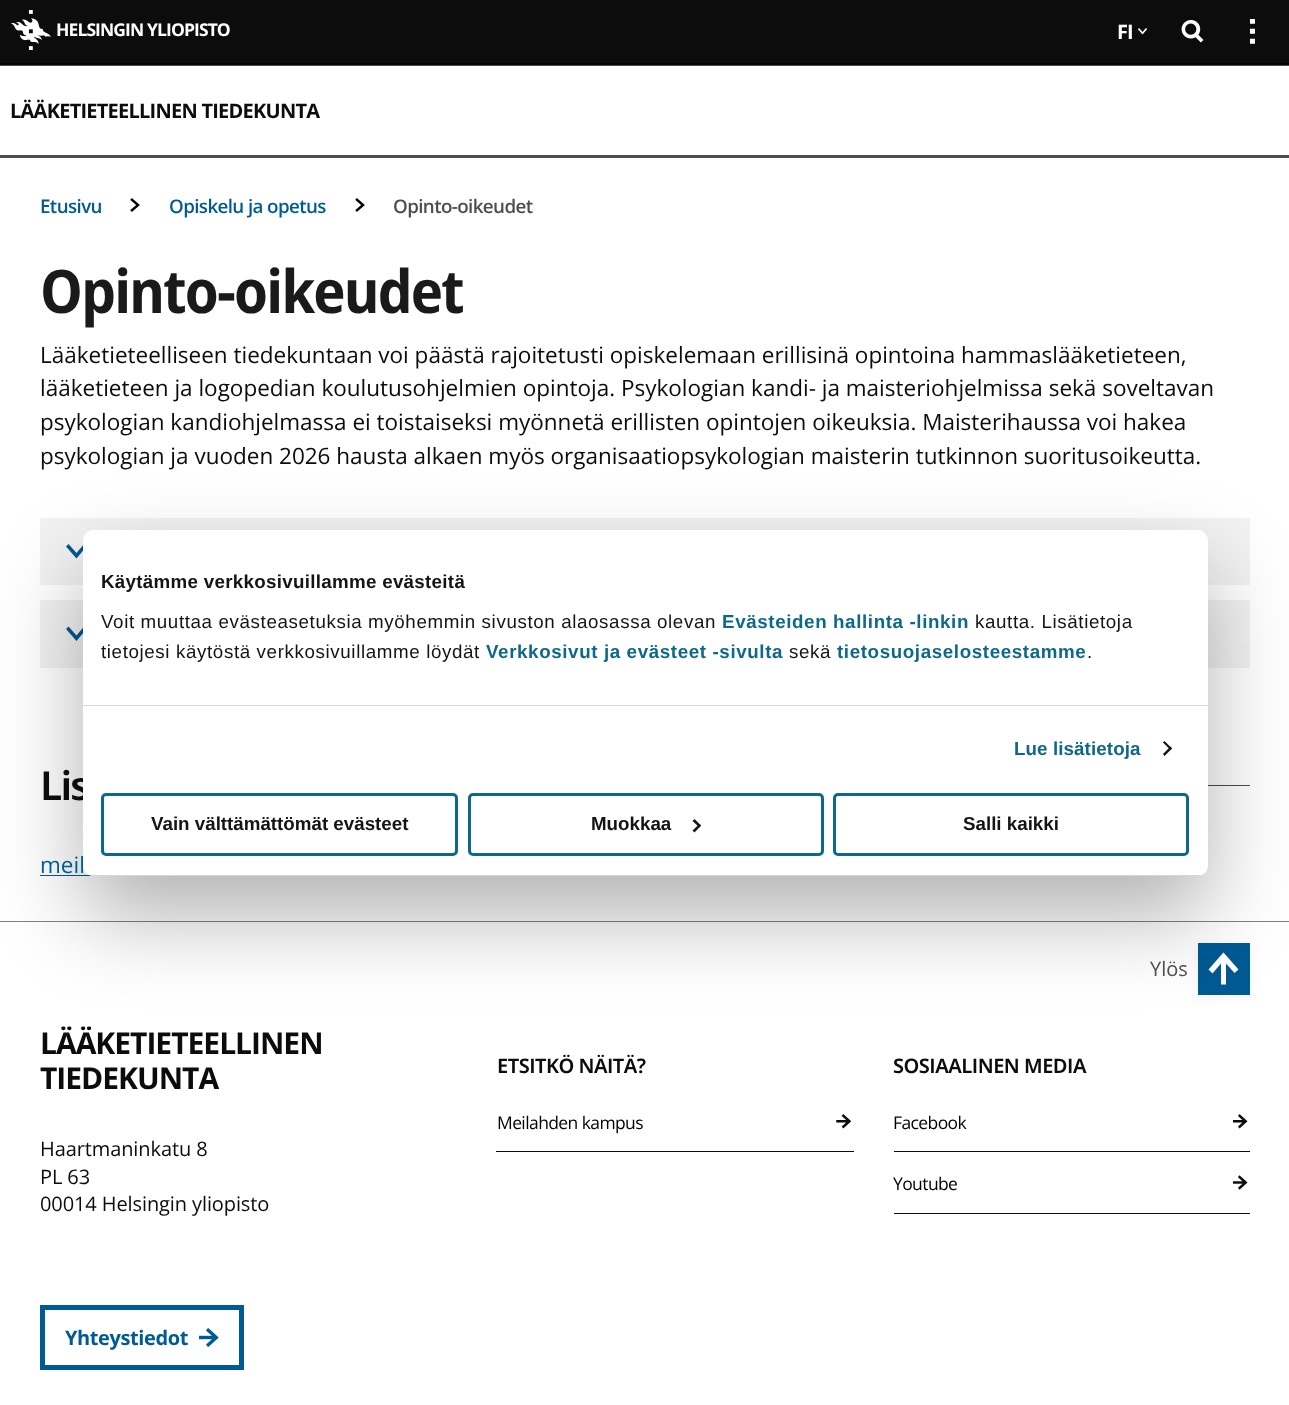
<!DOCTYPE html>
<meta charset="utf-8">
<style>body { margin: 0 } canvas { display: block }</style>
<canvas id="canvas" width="1289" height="1405"></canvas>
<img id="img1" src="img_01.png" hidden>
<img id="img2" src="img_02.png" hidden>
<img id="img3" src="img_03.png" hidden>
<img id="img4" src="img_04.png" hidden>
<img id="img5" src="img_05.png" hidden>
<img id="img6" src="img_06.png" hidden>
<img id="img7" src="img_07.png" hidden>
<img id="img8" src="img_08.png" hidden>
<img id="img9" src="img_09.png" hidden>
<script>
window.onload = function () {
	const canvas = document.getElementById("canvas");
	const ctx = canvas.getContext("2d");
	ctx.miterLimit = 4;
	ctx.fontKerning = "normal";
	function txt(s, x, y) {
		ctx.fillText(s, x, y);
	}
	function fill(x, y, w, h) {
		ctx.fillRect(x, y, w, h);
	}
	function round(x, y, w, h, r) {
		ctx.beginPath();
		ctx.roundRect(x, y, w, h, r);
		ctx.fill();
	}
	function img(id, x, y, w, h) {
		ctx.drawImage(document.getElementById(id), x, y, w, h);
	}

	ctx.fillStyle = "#FFFFFF";
	fill(0, 0, 1289, 1405);
	ctx.fillStyle = "#4D4D4D";
	fill(0, 65, 1289, 1);
	fill(0, 155, 1289, 3);
	ctx.fillStyle = "#0C0C0C";
	fill(0, 0, 1289, 63);
	ctx.fillStyle = "#040404";
	fill(0, 63, 1289, 2);
	img("img1", 11, 10, 40, 40);
	img("img2", 1138, 28, 10, 7);
	img("img3", 1181, 20, 23, 23);
	img("img4", 1249, 19, 6, 25);
	img("img5", 130, 198, 10, 14);
	img("img5", 355, 198, 10, 14);
	ctx.fillStyle = "#F2F2F2";
	fill(40, 518, 1210, 67);
	ctx.fillStyle = "#005A94";
	ctx.beginPath();
	ctx.moveTo(76.5, 558.5);
	ctx.lineTo(86.5, 546.5);
	ctx.lineTo(84, 544);
	ctx.lineTo(76.5, 553);
	ctx.lineTo(68.5, 544);
	ctx.lineTo(66, 546.5);
	ctx.closePath();
	ctx.fill();
	ctx.fillStyle = "#F2F2F2";
	fill(40, 600, 1210, 68);
	ctx.fillStyle = "#005A94";
	ctx.beginPath();
	ctx.moveTo(76.5, 641);
	ctx.lineTo(86.5, 629);
	ctx.lineTo(84, 626.5);
	ctx.lineTo(76.5, 635.5);
	ctx.lineTo(68.5, 626.5);
	ctx.lineTo(66, 629);
	ctx.closePath();
	ctx.fill();
	ctx.fillStyle = "#4D4D4D";
	fill(1208, 785, 42, 1);
	ctx.fillStyle = "#005A94";
	fill(40, 875, 53, 1);
	ctx.fillStyle = "#808080";
	fill(0, 921, 1289, 1);
	ctx.fillStyle = "rgba(0, 0, 0, 0.05)";
	ctx.filter = "blur(5px)";
	ctx.beginPath();
	ctx.rect(1198, 945, 52, 53);
	ctx.fill();
	ctx.filter = "none";
	ctx.fillStyle = "#005A94";
	fill(1198, 943, 52, 52);
	ctx.fillStyle = "#FFFFFF";
	ctx.beginPath();
	ctx.moveTo(1222.5, 953.5);
	ctx.lineTo(1208.5, 969.5);
	ctx.lineTo(1212.5, 973.5);
	ctx.lineTo(1221, 963.5);
	ctx.lineTo(1221, 984.5);
	ctx.lineTo(1226, 984.5);
	ctx.lineTo(1226, 963.5);
	ctx.lineTo(1234.5, 973);
	ctx.lineTo(1238.5, 969.5);
	ctx.lineTo(1223.5, 952.5);
	ctx.closePath();
	ctx.fill();
	ctx.strokeStyle = "#005A94";
	ctx.lineWidth = 5;
	ctx.strokeRect(42.5, 1307.5, 199, 60);
	img("img6", 199, 1328, 20, 20);
	ctx.fillStyle = "#0C0C0C";
	fill(496, 1151, 358, 1);
	img("img7", 836, 1114, 15, 15);
	fill(894, 1151, 356, 1);
	img("img8", 1233, 1114, 15, 15);
	fill(894, 1213, 356, 1);
	img("img9", 1233, 1175, 15, 15);
	ctx.fillStyle = "rgba(0, 0, 0, 0.3)";
	ctx.filter = "blur(42.5px)";
	ctx.beginPath();
	ctx.roundRect(83, 570, 1125, 346, 10);
	ctx.fill();
	ctx.filter = "none";
	ctx.letterSpacing = "-0.9px";
	ctx.font = "bold 17.5px Open Sans";
	ctx.fillStyle = "#FFFFFF";
	txt("HELSINGIN YLIOPISTO", 56, 36);
	ctx.font = "bold 20px Open Sans";
	txt("FI", 1117, 39);
	ctx.letterSpacing = "-0.75px";
	ctx.fillStyle = "#0C0C0C";
	txt("LÄÄKETIETEELLINEN TIEDEKUNTA", 10, 118);
	ctx.letterSpacing = "-0.6px";
	ctx.font = "600 18.75px Open Sans";
	ctx.fillStyle = "#005A94";
	txt("Etusivu", 40, 213);
	txt("Opiskelu ja opetus", 169, 213);
	ctx.fillStyle = "#4D4D4D";
	txt("Opinto-oikeudet", 393, 213);
	ctx.letterSpacing = "-1.75px";
	ctx.font = "bold 60px 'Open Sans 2'";
	ctx.fillStyle = "#1A1A1A";
	txt("Opinto-oikeudet", 40, 313);
	ctx.letterSpacing = "0px";
	ctx.font = "22.5px Open Sans";
	ctx.fillStyle = "#0C0C0C";
	txt("Lääketieteelliseen tiedekuntaan voi päästä rajoitetusti opiskelemaan erillisinä opintoina hammaslääketieteen,", 40, 363);
	txt("lääketieteen ja logopedian koulutusohjelmien opintoja. Psykologian kandi- ja maisteriohjelmissa sekä soveltavan", 40, 396);
	txt("psykologian kandiohjelmassa ei toistaiseksi myönnetä erillisten opintojen oikeuksia. Maisterihaussa voi hakea", 40, 430);
	txt("psykologian ja vuoden 2026 hausta alkaen myös organisaatiopsykologian maisterin tutkinnon suoritusoikeutta.", 40, 464);
	ctx.letterSpacing = "-1.75px";
	ctx.font = "600 40px 'Open Sans 2'";
	txt("Lis", 40, 800);
	ctx.letterSpacing = "0px";
	ctx.font = "22.5px Open Sans";
	ctx.fillStyle = "#005A94";
	txt("meil", 40, 873);
	ctx.font = "20px Open Sans";
	ctx.fillStyle = "#4D4D4D";
	txt("Ylös", 1150, 976);
	ctx.letterSpacing = "-1px";
	ctx.font = "bold 30px Open Sans";
	ctx.fillStyle = "#0C0C0C";
	txt("LÄÄKETIETEELLINEN", 40, 1054);
	txt("TIEDEKUNTA", 40, 1089);
	ctx.letterSpacing = "-0.1px";
	ctx.font = "20px Open Sans";
	txt("Haartmaninkatu 8", 40, 1156);
	txt("PL 63", 40, 1184);
	txt("00014 Helsingin yliopisto", 40, 1211);
	ctx.letterSpacing = "-0.4px";
	ctx.font = "bold 20px Open Sans";
	ctx.fillStyle = "#005A94";
	txt("Yhteystiedot", 65, 1345);
	ctx.letterSpacing = "-0.5px";
	ctx.font = "600 20px 'Open Sans 2'";
	ctx.fillStyle = "#0C0C0C";
	txt("ETSITKÖ NÄITÄ?", 497, 1073);
	ctx.letterSpacing = "-0.6px";
	ctx.font = "17.5px Open Sans";
	ctx.fillStyle = "#000000";
	txt("Meilahden kampus", 497, 1129);
	ctx.letterSpacing = "-0.5px";
	ctx.font = "600 20px 'Open Sans 2'";
	ctx.fillStyle = "#0C0C0C";
	txt("SOSIAALINEN MEDIA", 893, 1073);
	ctx.letterSpacing = "-0.6px";
	ctx.font = "17.5px Open Sans";
	ctx.fillStyle = "#000000";
	txt("Facebook", 893, 1129);
	txt("Youtube", 893, 1190);
	ctx.fillStyle = "#FFFFFF";
	round(83, 530, 1125, 346, 10);
	ctx.fillStyle = "#D6D6D6";
	fill(83, 705, 1125, 1);
	ctx.letterSpacing = "0.3px";
	ctx.font = "bold 18.75px Liberation Sans";
	ctx.fillStyle = "#141414";
	txt("Käytämme verkkosivuillamme evästeitä", 101, 588);
	ctx.letterSpacing = "0.62px";
	ctx.font = "18.75px Liberation Sans";
	txt("Voit muuttaa evästeasetuksia myöhemmin sivuston alaosassa olevan", 101, 628);
	ctx.font = "bold 18.75px Liberation Sans";
	ctx.fillStyle = "#0E688B";
	txt("Evästeiden hallinta -linkin", 722, 628);
	ctx.font = "18.75px Liberation Sans";
	ctx.fillStyle = "#141414";
	txt("kautta. Lisätietoja", 975, 628);
	txt("tietojesi käytöstä verkkosivuillamme löydät", 101, 658);
	ctx.font = "bold 18.75px Liberation Sans";
	ctx.fillStyle = "#0E688B";
	txt("Verkkosivut ja evästeet -sivulta", 486, 658);
	ctx.font = "18.75px Liberation Sans";
	ctx.fillStyle = "#141414";
	txt("sekä", 789, 658);
	ctx.font = "bold 18.75px Liberation Sans";
	ctx.fillStyle = "#0E688B";
	txt("tietosuojaselosteestamme", 837, 658);
	ctx.font = "18.75px Liberation Sans";
	ctx.fillStyle = "#141414";
	txt(".", 1087, 658);
	ctx.letterSpacing = "0.1px";
	ctx.font = "bold 18.75px Liberation Sans";
	ctx.fillStyle = "#0E688B";
	txt("Lue lisätietoja", 1014, 755);
	ctx.fillStyle = "#141414";
	ctx.beginPath();
	ctx.moveTo(1164.5, 741);
	ctx.lineTo(1172, 748.5);
	ctx.lineTo(1170.5, 750);
	ctx.lineTo(1163, 742.5);
	ctx.closePath();
	ctx.fill();
	ctx.beginPath();
	ctx.moveTo(1170.5, 746.5);
	ctx.lineTo(1172, 748.5);
	ctx.lineTo(1164.5, 756);
	ctx.lineTo(1163, 754);
	ctx.closePath();
	ctx.fill();
	ctx.save();
	ctx.beginPath();
	ctx.roundRect(83, 530, 1125, 346, 10);
	ctx.clip();
	ctx.fillStyle = "#D6D6D6";
	fill(83, 875, 1125, 1);
	ctx.restore();
	ctx.beginPath();
	ctx.roundRect(102.5, 794.5, 354, 60, 3.5);
	ctx.strokeStyle = "#0E688B";
	ctx.lineWidth = 3;
	ctx.stroke();
	ctx.letterSpacing = "0px";
	txt("Vain välttämättömät evästeet", 151, 830);
	ctx.beginPath();
	ctx.roundRect(469.5, 794.5, 353, 60, 3.5);
	ctx.stroke();
	txt("Muokkaa", 591, 830);
	ctx.beginPath();
	ctx.moveTo(694.5, 819);
	ctx.lineTo(701, 825.5);
	ctx.lineTo(699.5, 827.5);
	ctx.lineTo(692.5, 821);
	ctx.closePath();
	ctx.fill();
	ctx.beginPath();
	ctx.moveTo(699.5, 824);
	ctx.lineTo(701, 825.5);
	ctx.lineTo(694.5, 832.5);
	ctx.lineTo(692.5, 830.5);
	ctx.closePath();
	ctx.fill();
	ctx.beginPath();
	ctx.roundRect(834.5, 794.5, 353, 60, 3.5);
	ctx.stroke();
	txt("Salli kaikki", 963, 830);
};
</script>
